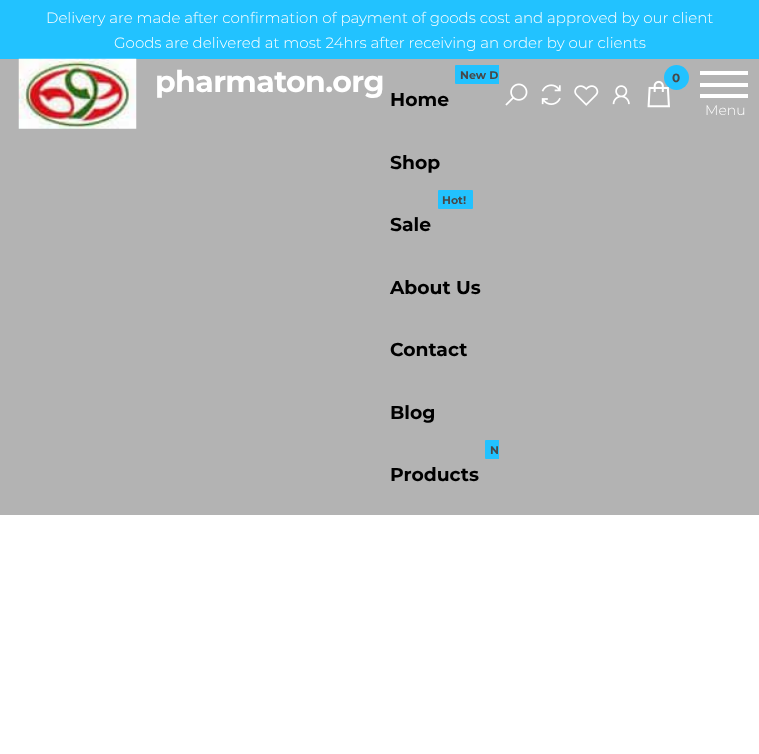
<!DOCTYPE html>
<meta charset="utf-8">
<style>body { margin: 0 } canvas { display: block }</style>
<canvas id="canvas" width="759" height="754"></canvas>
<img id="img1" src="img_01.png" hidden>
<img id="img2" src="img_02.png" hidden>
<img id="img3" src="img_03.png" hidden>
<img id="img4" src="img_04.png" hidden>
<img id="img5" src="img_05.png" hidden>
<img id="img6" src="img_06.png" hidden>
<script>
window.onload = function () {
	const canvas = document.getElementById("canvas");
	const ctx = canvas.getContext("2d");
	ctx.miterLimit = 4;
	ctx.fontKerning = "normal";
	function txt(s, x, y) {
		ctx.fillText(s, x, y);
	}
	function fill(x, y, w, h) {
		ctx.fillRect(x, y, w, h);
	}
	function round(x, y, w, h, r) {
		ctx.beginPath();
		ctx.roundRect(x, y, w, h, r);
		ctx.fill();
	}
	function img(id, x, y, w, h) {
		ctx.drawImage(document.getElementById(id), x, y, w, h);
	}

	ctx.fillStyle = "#FFFFFF";
	fill(0, 0, 759, 754);
	ctx.fillStyle = "#22C2FF";
	fill(0, 0, 759, 59);
	ctx.fillStyle = "#B3B3B3";
	fill(0, 59, 759, 456);
	img("img1", 18, 58, 119, 71);
	ctx.fillStyle = "#22C2FF";
	ctx.beginPath();
	ctx.roundRect(455, 65, 44, 19, [1, 0, 0, 1]);
	ctx.fill();
	round(438, 190, 35, 19, 1);
	ctx.beginPath();
	ctx.roundRect(485, 440, 14, 19, [1, 0, 0, 1]);
	ctx.fill();
	img("img2", 647, 80, 23, 28);
	ctx.beginPath();
	ctx.arc(676.5, 77.5, 12.5, 0, Math.PI * 2);
	ctx.fill();
	ctx.fillStyle = "#FFFFFF";
	fill(700, 71, 48, 4);
	fill(700, 83, 48, 4);
	fill(700, 94, 48, 4);
	img("img3", 505, 83, 23, 23);
	img("img4", 541, 84, 20, 21);
	img("img5", 574, 85, 25, 21);
	img("img6", 612, 85, 18, 20);
	ctx.font = "300 15px Montserrat";
	txt("Delivery are made after confirmation of payment of goods cost and approved by our client", 46, 23);
	txt("Goods are delivered at most 24hrs after receiving an order by our clients", 114, 48);
	ctx.letterSpacing = "-0.6px";
	ctx.font = "bold 30px Montserrat";
	txt("pharmaton.org", 155, 92);
	ctx.letterSpacing = "0px";
	ctx.font = "bold 11px Montserrat";
	ctx.fillStyle = "#484848";
	txt("New D", 460, 79);
	ctx.font = "bold 18.75px Montserrat";
	ctx.fillStyle = "#000000";
	txt("Home", 390, 106);
	txt("Shop", 390, 169);
	ctx.font = "bold 11px Montserrat";
	ctx.fillStyle = "#484848";
	txt("Hot!", 442, 204);
	ctx.font = "bold 18.75px Montserrat";
	ctx.fillStyle = "#000000";
	txt("Sale", 390, 231);
	txt("About Us", 390, 294);
	txt("Contact", 390, 356);
	txt("Blog", 390, 419);
	ctx.font = "bold 11px Montserrat";
	ctx.fillStyle = "#484848";
	txt("N", 490, 454);
	ctx.font = "bold 18.75px Montserrat";
	ctx.fillStyle = "#000000";
	txt("Products", 390, 481);
	ctx.font = "bold 12px Montserrat";
	ctx.fillStyle = "#484848";
	txt("0", 672, 82);
	ctx.font = "300 14px Montserrat";
	ctx.fillStyle = "#FFFFFF";
	txt("Menu", 705, 115);
};
</script>
